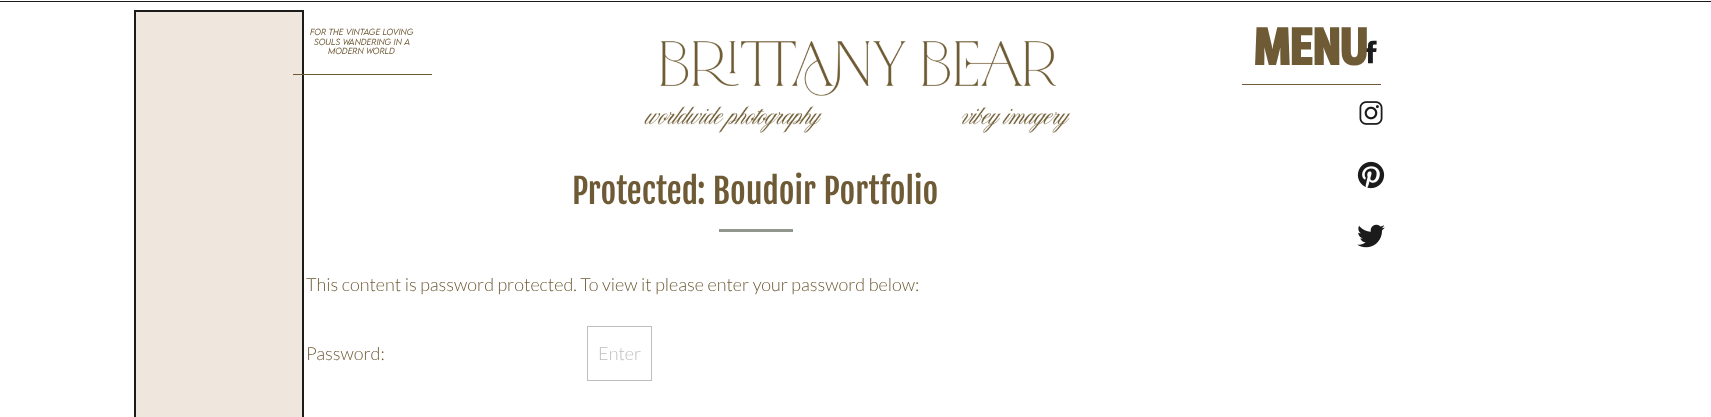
<!DOCTYPE html>
<meta charset="utf-8">
<style>body { margin: 0 } canvas { display: block }</style>
<canvas id="canvas" width="1711" height="417"></canvas>
<img id="img1" src="img_01.png" hidden>
<img id="img2" src="img_02.png" hidden>
<img id="img3" src="img_03.png" hidden>
<img id="img4" src="img_04.png" hidden>
<img id="img5" src="img_05.png" hidden>
<script>
window.onload = function () {
	const canvas = document.getElementById("canvas");
	const ctx = canvas.getContext("2d");
	ctx.miterLimit = 4;
	ctx.fontKerning = "normal";
	function txt(s, x, y) {
		ctx.fillText(s, x, y);
	}
	function fill(x, y, w, h) {
		ctx.fillRect(x, y, w, h);
	}
	function img(id, x, y, w, h) {
		ctx.drawImage(document.getElementById(id), x, y, w, h);
	}

	ctx.fillStyle = "#FFFFFF";
	fill(0, 0, 1711, 417);
	ctx.fillStyle = "#EFE6DD";
	ctx.beginPath();
	ctx.rect(135, 11, 168, 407);
	ctx.fill();
	ctx.strokeStyle = "#1C1B1B";
	ctx.lineWidth = 2;
	ctx.stroke();
	img("img1", 1365, 40, 12, 24);
	img("img2", 1359, 101, 24, 24);
	img("img3", 1357, 161, 28, 28);
	img("img4", 1357, 224, 28, 24);
	ctx.fillStyle = "#1C1B1B";
	fill(0, 1, 1711, 1);
	img("img5", 644, 41, 427, 92);
	ctx.fillStyle = "#6E5B36";
	fill(293, 74, 139, 1);
	fill(1242, 84, 139, 1);
	ctx.fillStyle = "#91978F";
	fill(719, 229, 74, 3);
	ctx.strokeStyle = "#BEBEBE";
	ctx.lineWidth = 1;
	ctx.strokeRect(587.5, 326.5, 64, 54);
	ctx.font = "italic 300 8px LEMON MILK";
	ctx.fillStyle = "#6E5B36";
	txt("FOR THE VINTAGE LOVING", 310, 35);
	txt("SOULS WANDERING IN A", 314, 45);
	txt("MODERN WORLD", 328, 54);
	ctx.font = "54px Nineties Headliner";
	txt("MENU", 1254, 65);
	ctx.font = "34px Fjalla One";
	txt("Protected: Boudoir Portfolio", 572, 204);
	ctx.font = "300 18px Lato";
	txt("This content is password protected. To view it please enter your password below:", 306, 291);
	txt("Password:", 306, 360);
	ctx.fillStyle = "#BEBEBE";
	txt("Enter", 598, 360);
};
</script>
